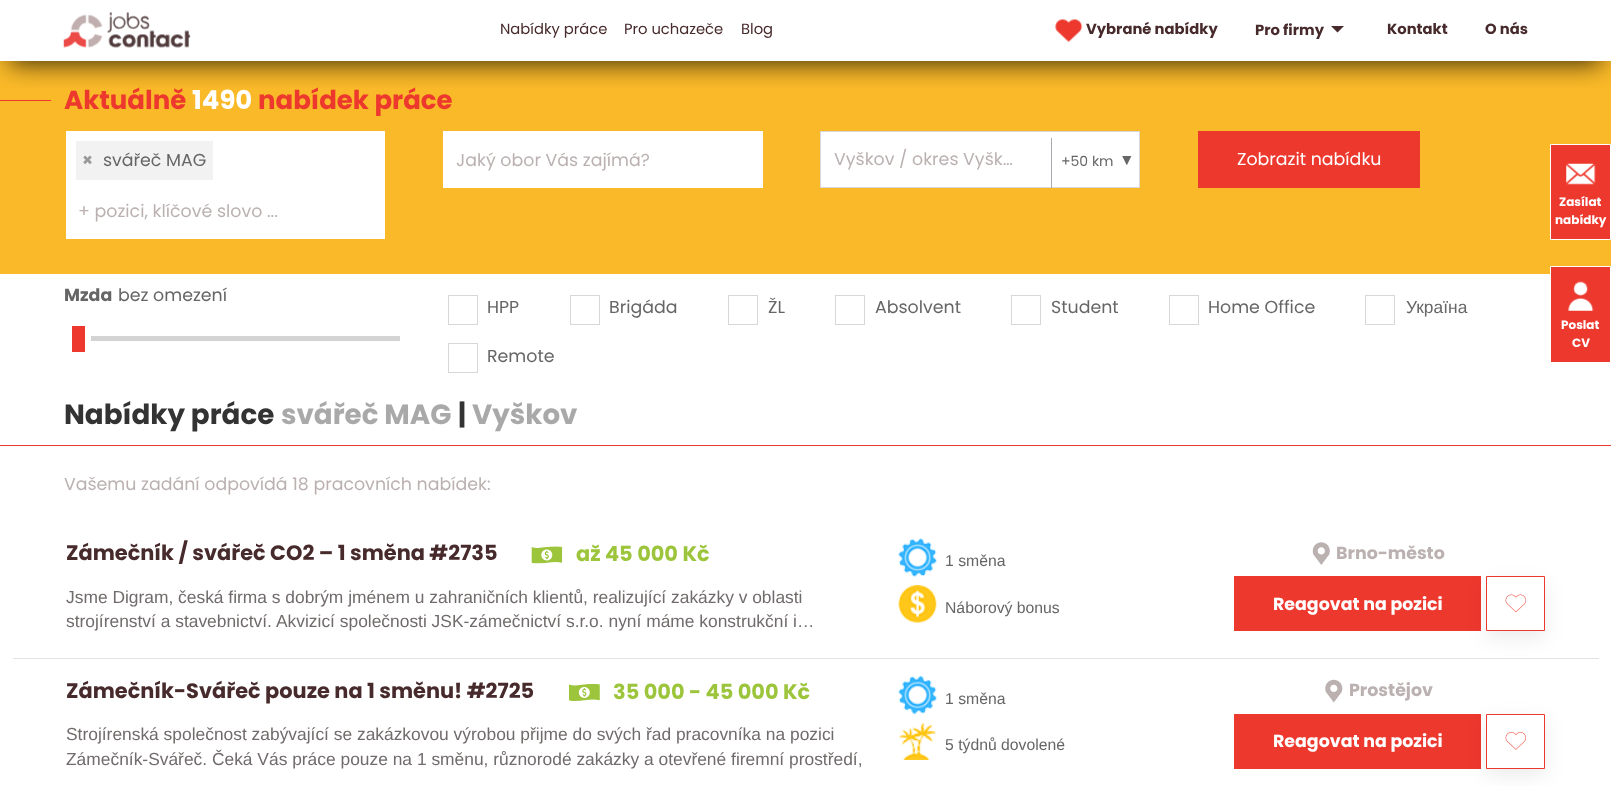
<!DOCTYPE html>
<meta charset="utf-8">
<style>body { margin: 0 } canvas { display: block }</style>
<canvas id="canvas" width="1611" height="786"></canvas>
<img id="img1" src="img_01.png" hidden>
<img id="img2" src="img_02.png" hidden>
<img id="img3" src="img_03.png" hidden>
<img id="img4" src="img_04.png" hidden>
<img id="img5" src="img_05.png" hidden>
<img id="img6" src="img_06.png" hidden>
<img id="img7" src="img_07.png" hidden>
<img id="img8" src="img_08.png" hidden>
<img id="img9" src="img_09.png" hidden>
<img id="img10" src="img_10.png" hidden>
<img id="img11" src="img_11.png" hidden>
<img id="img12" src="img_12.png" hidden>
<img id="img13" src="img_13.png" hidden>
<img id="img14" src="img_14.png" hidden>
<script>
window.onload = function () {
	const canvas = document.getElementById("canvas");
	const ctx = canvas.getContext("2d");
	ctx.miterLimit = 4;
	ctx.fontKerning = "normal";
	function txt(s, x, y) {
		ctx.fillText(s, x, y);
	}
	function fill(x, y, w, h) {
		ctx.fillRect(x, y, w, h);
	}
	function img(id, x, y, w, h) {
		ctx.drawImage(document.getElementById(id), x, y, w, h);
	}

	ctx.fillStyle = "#FFFFFF";
	fill(0, 0, 1611, 786);
	ctx.fillStyle = "#F9B928";
	fill(0, 61, 1611, 213);
	ctx.fillStyle = "#ED382E";
	fill(0, 100, 51, 1);
	ctx.save();
	ctx.beginPath();
	ctx.rect(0, 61, 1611, 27);
	ctx.clip();
	ctx.fillStyle = "rgba(0, 0, 0, 0.75)";
	ctx.filter = "blur(12.5px)";
	ctx.beginPath();
	ctx.rect(10, 23, 1591, 41);
	ctx.fill();
	ctx.filter = "none";
	ctx.restore();
	img("img1", 63, 12, 128, 36);
	img("img2", 1055, 19, 28, 24);
	ctx.fillStyle = "#472A2B";
	ctx.beginPath();
	ctx.moveTo(1331, 26);
	ctx.lineTo(1344, 26);
	ctx.lineTo(1337.5, 32.5);
	ctx.closePath();
	ctx.fill();
	ctx.fillStyle = "#ED382E";
	ctx.beginPath();
	ctx.rect(1550.5, 144.5, 60, 95);
	ctx.fill();
	ctx.strokeStyle = "#FFFFFF";
	ctx.stroke();
	img("img3", 1566, 163, 30, 22);
	ctx.beginPath();
	ctx.rect(1550.5, 266.5, 60, 96);
	ctx.fill();
	ctx.stroke();
	img("img4", 1568, 281, 26, 30);
	ctx.fillStyle = "#FFFFFF";
	fill(66, 131, 319, 108);
	ctx.fillStyle = "#F2F2F2";
	fill(76, 141, 137, 39);
	ctx.fillStyle = "#FFFFFF";
	fill(443, 131, 320, 57);
	ctx.beginPath();
	ctx.rect(820.5, 131.5, 319, 56);
	ctx.fill();
	ctx.strokeStyle = "#D7D7D7";
	ctx.stroke();
	ctx.fillStyle = "#A6A9AE";
	fill(1051, 138, 1, 50);
	ctx.fillStyle = "#ED382E";
	fill(1198, 131, 222, 57);
	ctx.fillStyle = "#D3D3D3";
	fill(91, 336, 309, 5);
	ctx.fillStyle = "#ED382E";
	fill(72, 326, 13, 26);
	ctx.strokeRect(448.5, 295.5, 29, 29);
	ctx.strokeRect(570.5, 295.5, 29, 29);
	ctx.strokeRect(728.5, 295.5, 29, 29);
	ctx.strokeRect(835.5, 295.5, 29, 29);
	ctx.strokeRect(1011.5, 295.5, 29, 29);
	ctx.strokeRect(1169.5, 295.5, 29, 29);
	ctx.strokeRect(1365.5, 295.5, 29, 29);
	ctx.strokeRect(448.5, 343.5, 29, 29);
	fill(0, 445, 1611, 1);
	ctx.fillStyle = "#E6E2E2";
	fill(13, 658, 1586, 1);
	img("img5", 531, 546, 32, 18);
	img("img6", 898, 538, 39, 39);
	img("img7", 898, 585, 39, 38);
	img("img8", 1312, 542, 18, 23);
	ctx.fillStyle = "#ED382E";
	fill(1234, 576, 247, 55);
	ctx.fillStyle = "rgba(0, 0, 0, 0.08)";
	ctx.filter = "blur(9.5px)";
	ctx.beginPath();
	ctx.rect(1486, 583, 59, 55);
	ctx.fill();
	ctx.filter = "none";
	ctx.fillStyle = "#FFFFFF";
	ctx.beginPath();
	ctx.rect(1486.5, 576.5, 58, 54);
	ctx.fill();
	ctx.strokeStyle = "#ED382E";
	ctx.stroke();
	img("img9", 1505, 594, 21, 19);
	img("img10", 569, 684, 31, 17);
	img("img11", 898, 676, 39, 38);
	img("img12", 898, 722, 39, 38);
	img("img13", 1325, 679, 18, 24);
	ctx.fillStyle = "#ED382E";
	fill(1234, 714, 247, 55);
	ctx.fillStyle = "rgba(0, 0, 0, 0.08)";
	ctx.filter = "blur(9.5px)";
	ctx.beginPath();
	ctx.rect(1486, 720, 59, 55);
	ctx.fill();
	ctx.filter = "none";
	ctx.fillStyle = "#FFFFFF";
	ctx.beginPath();
	ctx.rect(1486.5, 714.5, 58, 54);
	ctx.fill();
	ctx.stroke();
	img("img14", 1505, 732, 21, 18);
	ctx.font = "14.75px Poppins";
	ctx.fillStyle = "#472A2B";
	txt("Nabídky práce", 500, 34);
	txt("Pro uchazeče", 624, 34);
	txt("Blog", 741, 34);
	ctx.font = "bold 14.75px Poppins";
	txt("Vybrané nabídky", 1086, 34);
	txt("Pro firmy", 1255, 35);
	txt("Kontakt", 1387, 34);
	txt("O nás", 1485, 34);
	ctx.font = "bold 12px Poppins";
	ctx.fillStyle = "#FFFFFF";
	txt("Zasílat", 1559, 206);
	txt("nabídky", 1555, 224);
	txt("Poslat", 1561, 329);
	txt("CV", 1572, 347);
	ctx.font = "bold 26px Poppins";
	ctx.fillStyle = "#ED382E";
	txt("Aktuálně", 64, 109);
	ctx.fillStyle = "#FFFFFF";
	txt("1490", 192, 109);
	ctx.fillStyle = "#ED382E";
	txt("nabídek práce", 258, 109);
	ctx.font = "bold 17.4px Poppins";
	ctx.fillStyle = "#999999";
	txt("×", 82, 166);
	ctx.font = "17.4px Poppins";
	ctx.fillStyle = "#666666";
	txt("svářeč MAG", 103, 166);
	ctx.fillStyle = "#BBB1B1";
	txt("+ pozici, klíčové slovo ...", 78, 217);
	txt("Jaký obor Vás zajímá?", 456, 166);
	txt("Vyškov / okres Vyšk…", 834, 165);
	ctx.font = "14px Poppins";
	ctx.fillStyle = "#666666";
	txt("+50 km", 1061, 166);
	ctx.font = "15.75px Liberation Sans";
	txt("▼", 1119, 165);
	ctx.font = "17.4px Poppins";
	ctx.fillStyle = "#FFFFFF";
	txt("Zobrazit nabídku", 1237, 165);
	ctx.font = "bold 17.4px Poppins";
	ctx.fillStyle = "#666666";
	txt("Mzda", 64, 301);
	ctx.font = "17.4px Poppins";
	txt("bez omezení", 118, 301);
	txt("HPP", 487, 313);
	txt("Brigáda", 609, 313);
	txt("ŽL", 768, 313);
	txt("Absolvent", 875, 313);
	txt("Student", 1051, 313);
	txt("Home Office", 1208, 313);
	ctx.font = "17.4px Liberation Sans";
	txt("Україна", 1406, 313);
	ctx.font = "17.4px Poppins";
	txt("Remote", 487, 362);
	ctx.font = "bold 27.75px Poppins";
	ctx.fillStyle = "#333333";
	txt("Nabídky práce", 64, 424);
	ctx.fillStyle = "#A9A9A9";
	txt("svářeč MAG", 281, 424);
	ctx.fillStyle = "#333333";
	txt("|", 458, 424);
	ctx.fillStyle = "#A9A9A9";
	txt("Vyškov", 472, 424);
	ctx.font = "17.4px Poppins";
	ctx.fillStyle = "#BBB1B1";
	txt("Vašemu zadání odpovídá 18 pracovních nabídek:", 64, 490);
	ctx.font = "bold 20.9px Poppins";
	ctx.fillStyle = "#472A2B";
	txt("Zámečník / svářeč CO2 – 1 směna #2735", 66, 560);
	ctx.fillStyle = "#9CC53C";
	txt("až 45 000 Kč", 576, 561);
	ctx.font = "17.4px Liberation Sans";
	ctx.fillStyle = "#716B6B";
	txt("Jsme Digram, česká firma s dobrým jménem u zahraničních klientů, realizující zakázky v oblasti", 66, 603);
	txt("strojírenství a stavebnictví.", 66, 627);
	txt("Akvizicí společnosti JSK-zámečnictví s.r.o. nyní máme konstrukční i…", 276, 627);
	ctx.font = "15.75px Liberation Sans";
	ctx.fillStyle = "#666666";
	txt("1 směna", 945, 566);
	txt("Náborový bonus", 945, 613);
	ctx.font = "bold 17.4px Poppins";
	ctx.fillStyle = "#BBB1B1";
	txt("Brno-město", 1336, 559);
	ctx.fillStyle = "#FFFFFF";
	txt("Reagovat na pozici", 1273, 610);
	ctx.font = "bold 20.9px Poppins";
	ctx.fillStyle = "#472A2B";
	txt("Zámečník-Svářeč pouze na 1 směnu! #2725", 66, 698);
	ctx.fillStyle = "#9CC53C";
	txt("35 000 - 45 000 Kč", 613, 699);
	ctx.font = "17.4px Liberation Sans";
	ctx.fillStyle = "#716B6B";
	txt("Strojírenská společnost zabývající se zakázkovou výrobou přijme do svých řad pracovníka na pozici", 66, 740);
	txt("Zámečník-Svářeč. Čeká Vás práce pouze na 1 směnu, různorodé zakázky a otevřené firemní prostředí,", 66, 765);
	ctx.font = "15.75px Liberation Sans";
	ctx.fillStyle = "#666666";
	txt("1 směna", 945, 704);
	txt("5 týdnů dovolené", 945, 750);
	ctx.font = "bold 17.4px Poppins";
	ctx.fillStyle = "#BBB1B1";
	txt("Prostějov", 1349, 696);
	ctx.fillStyle = "#FFFFFF";
	txt("Reagovat na pozici", 1273, 747);
};
</script>
